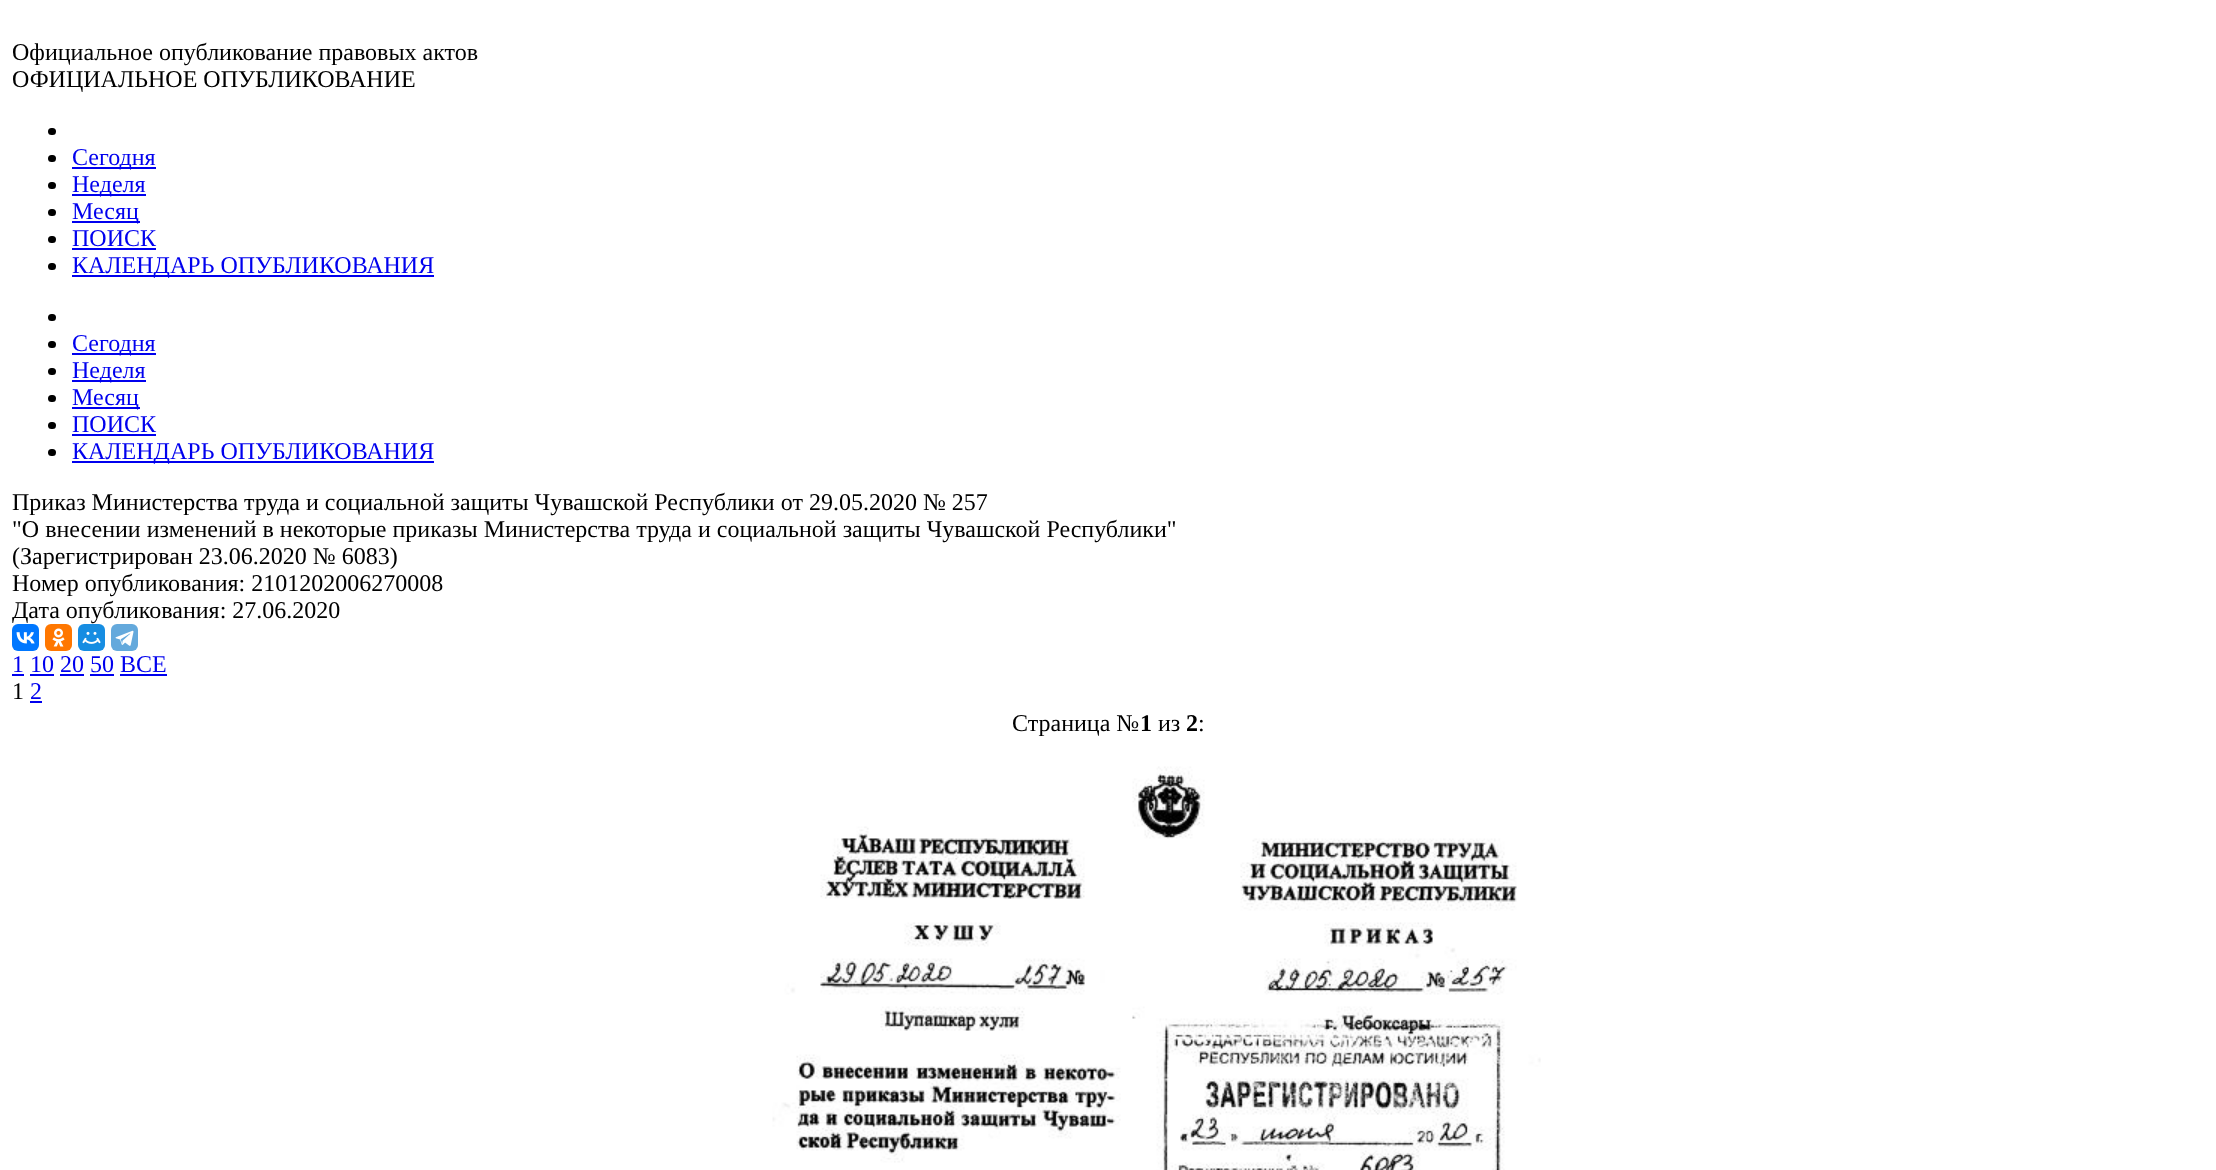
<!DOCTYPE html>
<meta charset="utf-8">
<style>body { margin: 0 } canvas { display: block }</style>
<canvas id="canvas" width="2216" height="1170"></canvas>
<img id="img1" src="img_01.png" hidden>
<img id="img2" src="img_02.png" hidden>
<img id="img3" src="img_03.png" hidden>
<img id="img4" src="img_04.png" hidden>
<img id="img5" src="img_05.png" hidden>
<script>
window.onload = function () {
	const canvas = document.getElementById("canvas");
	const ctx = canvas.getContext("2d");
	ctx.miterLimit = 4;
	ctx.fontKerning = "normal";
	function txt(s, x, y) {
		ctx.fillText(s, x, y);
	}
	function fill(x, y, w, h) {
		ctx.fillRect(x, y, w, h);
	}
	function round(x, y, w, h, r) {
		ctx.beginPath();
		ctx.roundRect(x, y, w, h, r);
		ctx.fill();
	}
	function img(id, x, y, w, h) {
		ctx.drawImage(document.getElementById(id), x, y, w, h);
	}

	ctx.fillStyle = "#FFFFFF";
	fill(0, 0, 2216, 1170);
	ctx.fillStyle = "#000000";
	round(48, 128, 8, 7, 3.5);
	round(48, 155, 8, 7, 3.5);
	ctx.fillStyle = "#0000EE";
	fill(72, 167, 84, 2);
	ctx.fillStyle = "#000000";
	round(48, 182, 8, 7, 3.5);
	ctx.fillStyle = "#0000EE";
	fill(72, 194, 74, 2);
	ctx.fillStyle = "#000000";
	round(48, 209, 8, 7, 3.5);
	ctx.fillStyle = "#0000EE";
	fill(72, 221, 68, 2);
	ctx.fillStyle = "#000000";
	round(48, 236, 8, 7, 3.5);
	ctx.fillStyle = "#0000EE";
	fill(72, 248, 84, 2);
	ctx.fillStyle = "#000000";
	round(48, 263, 8, 7, 3.5);
	ctx.fillStyle = "#0000EE";
	fill(72, 275, 362, 2);
	ctx.fillStyle = "#000000";
	round(48, 314, 8, 7, 3.5);
	round(48, 341, 8, 7, 3.5);
	ctx.fillStyle = "#0000EE";
	fill(72, 353, 84, 2);
	ctx.fillStyle = "#000000";
	round(48, 368, 8, 7, 3.5);
	ctx.fillStyle = "#0000EE";
	fill(72, 380, 74, 2);
	ctx.fillStyle = "#000000";
	round(48, 395, 8, 7, 3.5);
	ctx.fillStyle = "#0000EE";
	fill(72, 407, 68, 2);
	ctx.fillStyle = "#000000";
	round(48, 422, 8, 7, 3.5);
	ctx.fillStyle = "#0000EE";
	fill(72, 434, 84, 2);
	ctx.fillStyle = "#000000";
	round(48, 449, 8, 7, 3.5);
	ctx.fillStyle = "#0000EE";
	fill(72, 461, 362, 2);
	ctx.fillStyle = "#0077FF";
	round(12, 624, 27, 27, 6);
	img("img1", 16, 632, 19, 12);
	ctx.fillStyle = "#FF7700";
	round(45, 624, 27, 27, 6);
	img("img2", 52, 628, 13, 19);
	ctx.fillStyle = "#168DE2";
	round(78, 624, 27, 27, 6);
	img("img3", 82, 631, 19, 13);
	ctx.fillStyle = "#64A9DC";
	round(111, 624, 27, 27, 6);
	img("img4", 115, 630, 19, 16);
	ctx.fillStyle = "#0000EE";
	fill(12, 674, 12, 2);
	fill(30, 674, 24, 2);
	fill(60, 674, 24, 2);
	fill(90, 674, 24, 2);
	fill(120, 674, 47, 2);
	fill(30, 701, 12, 2);
	img("img5", 772, 766, 769, 404);
	ctx.font = "24px Liberation Serif";
	ctx.fillStyle = "#000000";
	txt("Официальное опубликование правовых актов", 12, 60);
	txt("ОФИЦИАЛЬНОЕ ОПУБЛИКОВАНИЕ", 12, 87);
	ctx.fillStyle = "#0000EE";
	txt("Сегодня", 72, 165);
	txt("Неделя", 72, 192);
	txt("Месяц", 72, 219);
	txt("ПОИСК", 72, 246);
	txt("КАЛЕНДАРЬ ОПУБЛИКОВАНИЯ", 72, 273);
	txt("Сегодня", 72, 351);
	txt("Неделя", 72, 378);
	txt("Месяц", 72, 405);
	txt("ПОИСК", 72, 432);
	txt("КАЛЕНДАРЬ ОПУБЛИКОВАНИЯ", 72, 459);
	ctx.fillStyle = "#000000";
	txt("Приказ Министерства труда и социальной защиты Чувашской Республики от 29.05.2020 № 257", 12, 510);
	txt("\"О внесении изменений в некоторые приказы Министерства труда и социальной защиты Чувашской Республики\"", 12, 537);
	txt("(Зарегистрирован 23.06.2020 № 6083)", 12, 564);
	txt("Номер опубликования: 2101202006270008", 12, 591);
	txt("Дата опубликования: 27.06.2020", 12, 618);
	ctx.fillStyle = "#0000EE";
	txt("1 10 20 50 ВСЕ", 12, 672);
	ctx.fillStyle = "#000000";
	txt("1", 12, 699);
	ctx.fillStyle = "#0000EE";
	txt("2", 30, 699);
	ctx.fillStyle = "#000000";
	txt("Страница №", 1012, 731);
	ctx.font = "bold 24px Liberation Serif";
	txt("1", 1140, 731);
	ctx.font = "24px Liberation Serif";
	txt("из", 1158, 731);
	ctx.font = "bold 24px Liberation Serif";
	txt("2", 1186, 731);
	ctx.font = "24px Liberation Serif";
	txt(":", 1198, 731);
};
</script>
